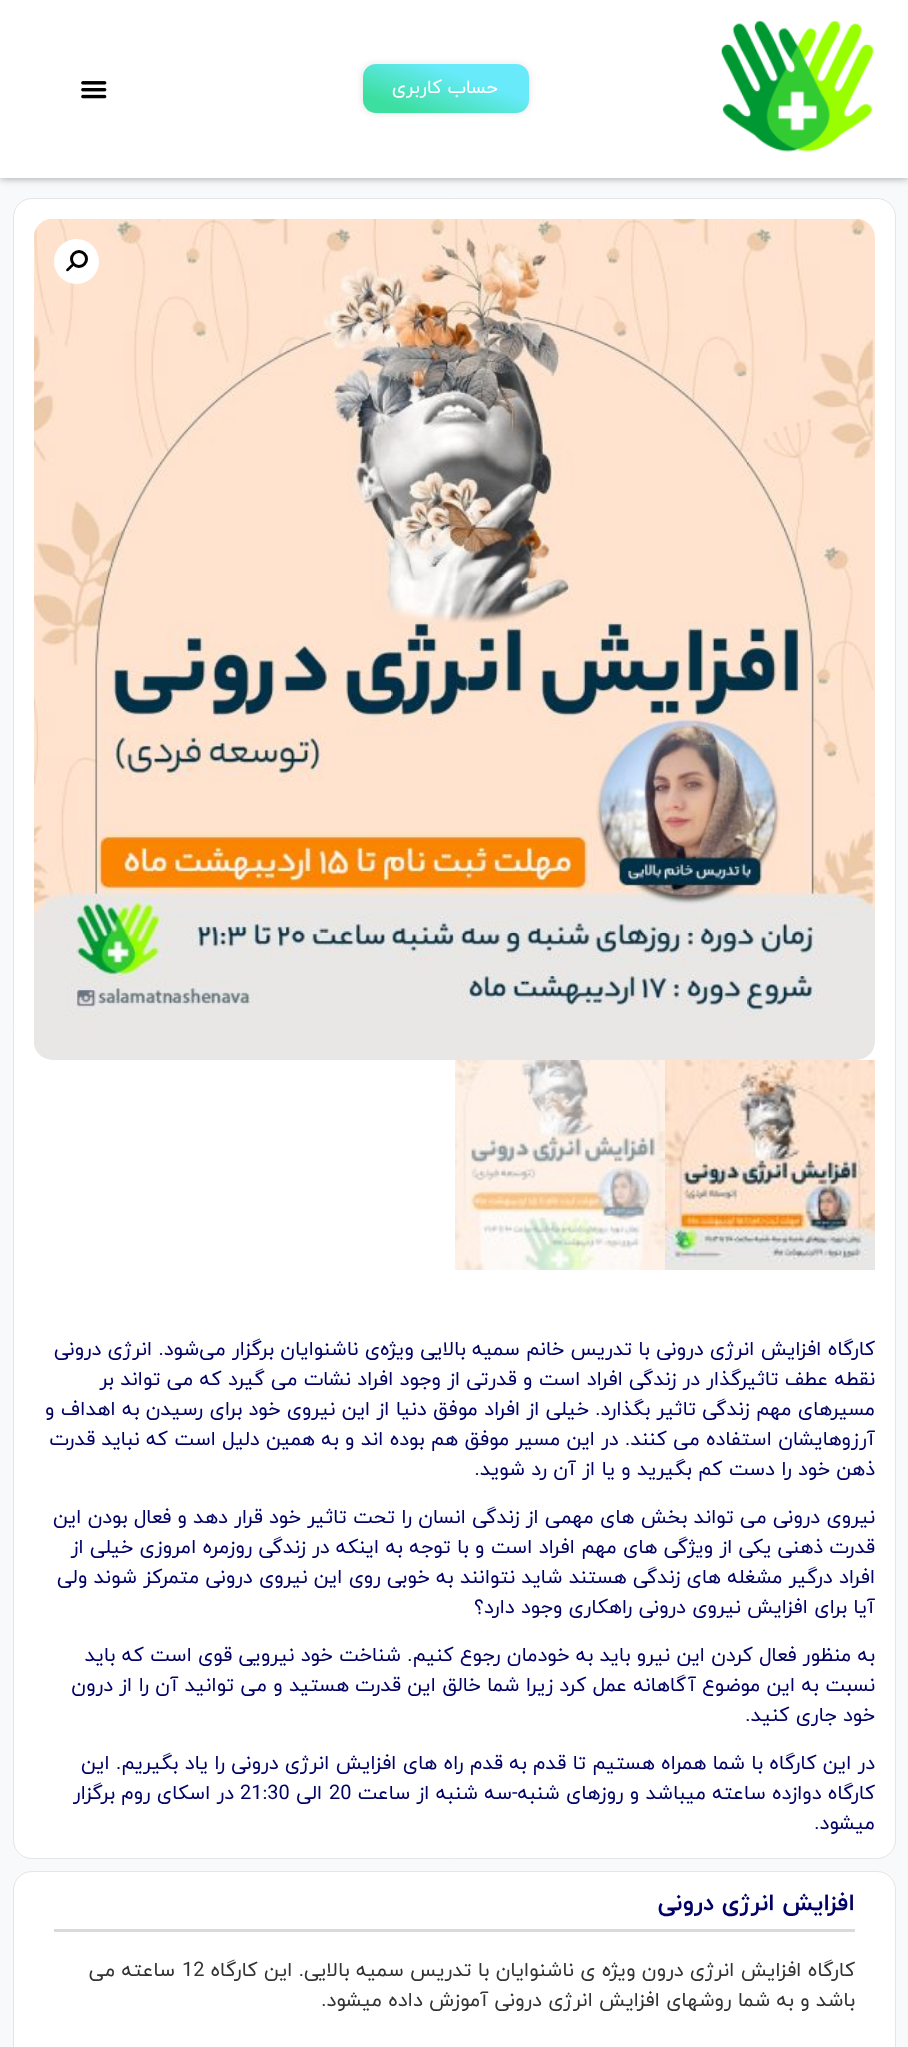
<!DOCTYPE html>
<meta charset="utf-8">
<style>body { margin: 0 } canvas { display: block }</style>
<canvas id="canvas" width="908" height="2047"></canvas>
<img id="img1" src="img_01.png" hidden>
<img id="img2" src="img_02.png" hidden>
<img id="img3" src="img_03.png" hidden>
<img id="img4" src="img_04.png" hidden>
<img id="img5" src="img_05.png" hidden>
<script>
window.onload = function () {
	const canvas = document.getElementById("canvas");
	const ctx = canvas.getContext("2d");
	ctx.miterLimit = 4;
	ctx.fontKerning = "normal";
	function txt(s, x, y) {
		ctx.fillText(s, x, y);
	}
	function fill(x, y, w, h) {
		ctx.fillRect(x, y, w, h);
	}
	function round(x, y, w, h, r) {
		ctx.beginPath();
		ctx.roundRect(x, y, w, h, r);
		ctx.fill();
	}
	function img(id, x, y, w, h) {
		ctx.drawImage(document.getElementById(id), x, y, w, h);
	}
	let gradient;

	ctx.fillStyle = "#F8F9FA";
	fill(0, 0, 908, 2047);
	ctx.fillStyle = "rgba(0, 0, 0, 0.38)";
	ctx.filter = "blur(4.5px)";
	ctx.beginPath();
	ctx.rect(0, 0, 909, 178);
	ctx.fill();
	ctx.filter = "none";
	ctx.fillStyle = "#FFFFFF";
	fill(0, 0, 908, 178);
	img("img1", 720, 20, 154, 132);
	ctx.fillStyle = "rgba(227, 227, 227, 0.71)";
	ctx.filter = "blur(3px)";
	ctx.beginPath();
	ctx.roundRect(361, 63, 169, 51, 14);
	ctx.fill();
	ctx.filter = "none";
	gradient = ctx.createLinearGradient(463, 40, 428, 136);
	gradient.addColorStop(0.33, "#68EAFB");
	gradient.addColorStop(0.83, "#3DDFA1");
	ctx.fillStyle = gradient;
	round(363, 64, 166, 49, 13);
	img("img2", 81, 81, 26, 18);
	ctx.fillStyle = "#FFFFFF";
	ctx.beginPath();
	ctx.roundRect(13.5, 198.5, 882, 1660, 18.5);
	ctx.fill();
	ctx.strokeStyle = "#E5E5E5";
	ctx.stroke();
	img("img3", 34, 219, 841, 841);
	ctx.beginPath();
	ctx.arc(76.5, 261.5, 22.5, 0, Math.PI * 2);
	ctx.fill();
	ctx.beginPath();
	ctx.arc(79, 259, 7.5, 0, Math.PI * 2);
	ctx.strokeStyle = "#000000";
	ctx.lineWidth = 3;
	ctx.stroke();
	ctx.fillStyle = "#000000";
	ctx.beginPath();
	ctx.moveTo(73.5, 264);
	ctx.bezierCurveTo(75, 265.5, 71.5, 267.5, 71, 268.5);
	ctx.bezierCurveTo(70, 269, 68, 272.5, 66.5, 271);
	ctx.bezierCurveTo(65, 269.5, 68.5, 267.5, 69, 266.5);
	ctx.bezierCurveTo(70, 266, 72, 262.5, 73.5, 264);
	ctx.closePath();
	ctx.fill();
	img("img4", 665, 1060, 210, 210);
	img("img5", 455, 1060, 210, 210);
	ctx.fillStyle = "#FFFFFF";
	ctx.beginPath();
	ctx.roundRect(13.5, 1871.5, 882, 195, 18.5);
	ctx.fill();
	ctx.strokeStyle = "#E5E5E5";
	ctx.lineWidth = 1;
	ctx.stroke();
	ctx.fillStyle = "#DADADA";
	fill(54, 1929, 801, 3);
	ctx.direction = "rtl";
	ctx.font = "18.75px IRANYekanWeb";
	ctx.fillStyle = "#FFFFFF";
	txt("حساب کاربری", 498, 93);
	ctx.font = "20px IRANYekanWeb";
	ctx.fillStyle = "#010066";
	txt("کارگاه افزایش انرژی درونی با تدریس خانم سمیه بالایی ویژه‌ی ناشنوایان برگزار می‌شود. انرژی درونی", 875, 1355);
	txt("نقطه عطف تاثیرگذار در زندگی افراد است و قدرتی از وجود افراد نشات می گیرد که می تواند بر", 875, 1385);
	txt("مسیرهای مهم زندگی تاثیر بگذارد. خیلی از افراد موفق دنیا از این نیروی خود برای رسیدن به اهداف و", 875, 1415);
	txt("آرزوهایشان استفاده می کنند. در این مسیر موفق هم بوده اند و به همین دلیل است که نباید قدرت", 875, 1445);
	txt("ذهن خود را دست کم بگیرید و یا از آن رد شوید.", 875, 1475);
	txt("نیروی درونی می تواند بخش های مهمی از زندگی انسان را تحت تاثیر خود قرار دهد و فعال بودن این", 875, 1523);
	txt("قدرت ذهنی یکی از ویژگی های مهم افراد است و با توجه به اینکه در زندگی روزمره امروزی خیلی از", 875, 1553);
	txt("افراد درگیر مشغله های زندگی هستند شاید نتوانند به خوبی روی این نیروی درونی متمرکز شوند ولی", 875, 1583);
	txt("آیا برای افزایش نیروی درونی راهکاری وجود دارد؟", 875, 1613);
	txt("به منظور فعال کردن این نیرو باید به خودمان رجوع کنیم. شناخت خود نیرویی قوی است که باید", 875, 1661);
	txt("نسبت به این موضوع آگاهانه عمل کرد زیرا شما خالق این قدرت هستید و می توانید آن را از درون", 875, 1691);
	txt("خود جاری کنید.", 875, 1721);
	txt("در این کارگاه با شما همراه هستیم تا قدم به قدم راه های افزایش انرژی درونی را یاد بگیریم. این", 875, 1769);
	txt("کارگاه دوازده ساعته میباشد و روزهای شنبه-سه شنبه از ساعت", 875, 1799);
	ctx.direction = "ltr";
	txt("20", 329, 1799);
	ctx.direction = "rtl";
	txt("الی", 322, 1799);
	ctx.direction = "ltr";
	txt("21:30", 240, 1799);
	ctx.direction = "rtl";
	txt("در اسکای روم برگزار", 234, 1799);
	txt("میشود.", 875, 1829);
	ctx.font = "bold 23.75px IRANYekanWeb";
	txt("افزایش انرژی درونی", 855, 1910);
	ctx.font = "20px IRANYekanWeb";
	ctx.fillStyle = "#333333";
	txt("کارگاه افزایش انرژی درون ویژه ی ناشنوایان با تدریس سمیه بالایی. این کارگاه", 855, 1976);
	ctx.direction = "ltr";
	txt("12", 182, 1976);
	ctx.direction = "rtl";
	txt("ساعته می", 175, 1976);
	txt("باشد و به شما روشهای افزایش انرژی درونی آموزش داده میشود.", 855, 2006);
};
</script>
